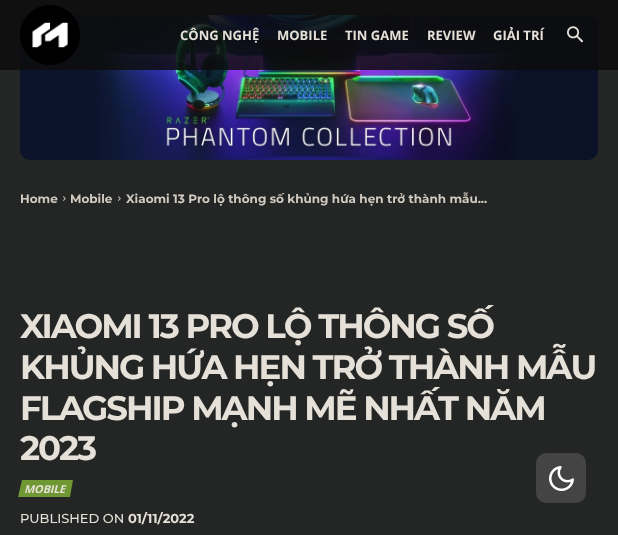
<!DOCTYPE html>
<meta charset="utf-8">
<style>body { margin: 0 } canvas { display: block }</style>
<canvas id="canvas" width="618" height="535"></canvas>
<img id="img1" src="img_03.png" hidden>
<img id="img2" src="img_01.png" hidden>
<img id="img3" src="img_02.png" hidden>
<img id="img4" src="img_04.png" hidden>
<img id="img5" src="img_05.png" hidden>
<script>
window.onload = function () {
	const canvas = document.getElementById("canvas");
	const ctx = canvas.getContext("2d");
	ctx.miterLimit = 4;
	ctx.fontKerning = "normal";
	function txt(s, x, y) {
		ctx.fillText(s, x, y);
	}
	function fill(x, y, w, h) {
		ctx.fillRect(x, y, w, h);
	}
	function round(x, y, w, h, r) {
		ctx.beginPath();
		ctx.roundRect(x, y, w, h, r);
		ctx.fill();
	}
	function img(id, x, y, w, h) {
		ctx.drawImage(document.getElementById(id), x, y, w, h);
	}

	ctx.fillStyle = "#242525";
	fill(0, 0, 618, 535);
	img("img1", 20, 15, 578, 145);
	ctx.fillStyle = "rgba(13, 13, 13, 0.85)";
	fill(0, 0, 618, 70);
	img("img2", 20, 5, 60, 60);
	img("img3", 567, 26, 16, 17);
	img("img4", 63, 196, 3, 5);
	img("img4", 118, 196, 3, 5);
	ctx.fillStyle = "#6F9832";
	ctx.beginPath();
	ctx.moveTo(22, 480);
	ctx.lineTo(73, 480);
	ctx.lineTo(70, 497);
	ctx.lineTo(18, 497);
	ctx.closePath();
	ctx.fill();
	ctx.fillStyle = "#444444";
	round(536, 453, 50, 50, 10);
	img("img5", 549, 466, 25, 25);
	ctx.font = "bold 13px Open Sans";
	ctx.fillStyle = "#E5E0D8";
	txt("CÔNG NGHỆ", 180, 40);
	txt("MOBILE", 277, 40);
	txt("TIN GAME", 345, 40);
	txt("REVIEW", 427, 40);
	txt("GIẢI TRÍ", 493, 40);
	ctx.font = "bold 12px Montserrat";
	ctx.fillStyle = "#D1CBC1";
	txt("Home", 20, 203);
	txt("Mobile", 70, 203);
	txt("Xiaomi 13 Pro lộ thông số khủng hứa hẹn trở thành mẫu...", 126, 203);
	ctx.letterSpacing = "-2px";
	ctx.font = "bold 34px Montserrat";
	ctx.fillStyle = "#E5E0D8";
	txt("XIAOMI 13 PRO LỘ THÔNG SỐ", 20, 338);
	txt("KHỦNG HỨA HẸN TRỞ THÀNH MẪU", 20, 379);
	txt("FLAGSHIP MẠNH MẼ NHẤT NĂM", 20, 420);
	txt("2023", 20, 460);
	ctx.letterSpacing = "-0.25px";
	ctx.font = "italic bold 11px Open Sans";
	txt("MOBILE", 24, 493);
	ctx.letterSpacing = "0px";
	ctx.font = "500 13px Montserrat";
	txt("PUBLISHED ON", 20, 523);
	ctx.font = "bold 13px Montserrat";
	txt("01/11/2022", 128, 523);
};
</script>
